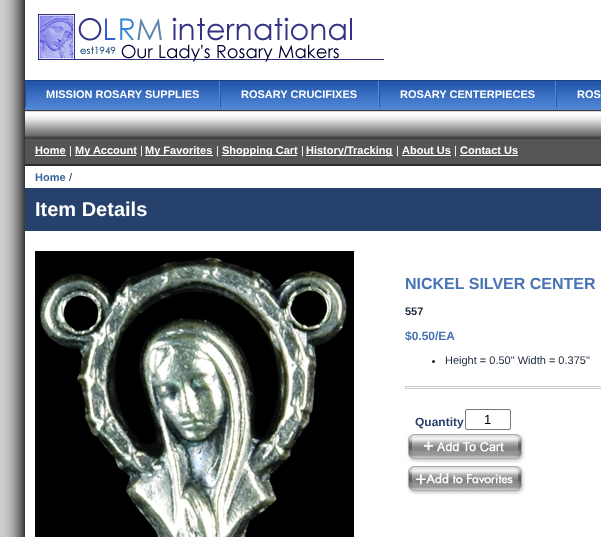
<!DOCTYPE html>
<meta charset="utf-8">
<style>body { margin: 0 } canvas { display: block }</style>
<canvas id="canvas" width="601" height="537"></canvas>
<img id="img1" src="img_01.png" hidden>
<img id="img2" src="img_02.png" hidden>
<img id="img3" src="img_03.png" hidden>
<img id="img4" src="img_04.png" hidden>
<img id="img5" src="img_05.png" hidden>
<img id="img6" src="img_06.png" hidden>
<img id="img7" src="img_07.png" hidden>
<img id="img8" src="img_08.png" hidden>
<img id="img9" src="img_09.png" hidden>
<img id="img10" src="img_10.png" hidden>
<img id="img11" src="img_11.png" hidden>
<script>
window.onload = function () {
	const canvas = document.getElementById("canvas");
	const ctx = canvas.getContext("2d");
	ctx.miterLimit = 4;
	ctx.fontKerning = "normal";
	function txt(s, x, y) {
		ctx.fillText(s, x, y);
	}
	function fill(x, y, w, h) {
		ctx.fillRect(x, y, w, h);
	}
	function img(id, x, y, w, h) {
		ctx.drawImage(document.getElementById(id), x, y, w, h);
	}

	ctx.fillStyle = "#FFFFFF";
	fill(0, 0, 601, 537);
	img("img1", 0, 0, 25, 537);
	img("img2", 38, 14, 346, 48);
	img("img3", 25, 107, 576, 3);
	ctx.fillStyle = "#1A4182";
	fill(25, 80, 576, 1);
	img("img4", 26, 81, 193, 26);
	ctx.fillStyle = "#548ADA";
	fill(219, 81, 1, 26);
	ctx.fillStyle = "#2255AA";
	fill(25, 81, 1, 26);
	img("img5", 221, 81, 157, 26);
	ctx.fillStyle = "#548ADA";
	fill(378, 81, 1, 26);
	ctx.fillStyle = "#2255AA";
	fill(220, 81, 1, 26);
	img("img6", 380, 81, 175, 26);
	ctx.fillStyle = "#548ADA";
	fill(555, 81, 1, 26);
	ctx.fillStyle = "#2255AA";
	fill(379, 81, 1, 26);
	img("img7", 557, 81, 44, 26);
	fill(556, 81, 1, 26);
	img("img8", 25, 111, 576, 27);
	ctx.fillStyle = "#3C3B3B";
	fill(25, 110, 576, 1);
	fill(25, 138, 576, 1);
	ctx.fillStyle = "#555555";
	fill(25, 139, 576, 25);
	ctx.fillStyle = "#2A2A2A";
	fill(25, 164, 576, 2);
	ctx.fillStyle = "#FFFFFF";
	fill(35, 155, 31, 1);
	fill(75, 155, 61, 1);
	fill(145, 155, 68, 1);
	fill(222, 155, 75, 1);
	fill(306, 155, 87, 1);
	fill(402, 155, 49, 1);
	fill(460, 155, 58, 1);
	ctx.fillStyle = "#25416C";
	fill(25, 188, 576, 43);
	img("img9", 35, 251, 319, 286);
	ctx.fillStyle = "#192838";
	ctx.beginPath();
	ctx.arc(433.5, 361.5, 1.5, 0, Math.PI * 2);
	ctx.fill();
	ctx.strokeStyle = "#CCCCCC";
	ctx.strokeRect(405.5, 386.5, 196, 2);
	ctx.beginPath();
	ctx.roundRect(465.5, 409.5, 45, 20, 1.5);
	ctx.strokeStyle = "#767676";
	ctx.stroke();
	img("img10", 405, 431, 120, 32);
	img("img11", 406, 465, 119, 30);
	ctx.font = "bold 11px Liberation Sans";
	ctx.fillStyle = "#FFFFFF";
	txt("MISSION ROSARY SUPPLIES", 46, 98);
	txt("ROSARY CRUCIFIXES", 241, 98);
	txt("ROSARY CENTERPIECES", 400, 98);
	txt("ROS", 577, 98);
	txt("Home", 35, 154);
	ctx.font = "11px Liberation Sans";
	txt("|", 69, 154);
	ctx.font = "bold 11px Liberation Sans";
	txt("My Account", 75, 154);
	ctx.font = "11px Liberation Sans";
	txt("|", 140, 154);
	ctx.font = "bold 11px Liberation Sans";
	txt("My Favorites", 145, 154);
	ctx.font = "11px Liberation Sans";
	txt("|", 216, 154);
	ctx.font = "bold 11px Liberation Sans";
	txt("Shopping Cart", 222, 154);
	ctx.font = "11px Liberation Sans";
	txt("|", 301, 154);
	ctx.font = "bold 11px Liberation Sans";
	txt("History/Tracking", 306, 154);
	ctx.font = "11px Liberation Sans";
	txt("|", 396, 154);
	ctx.font = "bold 11px Liberation Sans";
	txt("About Us", 402, 154);
	ctx.font = "11px Liberation Sans";
	txt("|", 454, 154);
	ctx.font = "bold 11px Liberation Sans";
	txt("Contact Us", 460, 154);
	ctx.fillStyle = "#38659E";
	txt("Home", 35, 181);
	ctx.font = "11px Liberation Sans";
	ctx.fillStyle = "#192838";
	txt("/", 69, 181);
	ctx.font = "bold 20px Liberation Sans";
	ctx.fillStyle = "#FFFFFF";
	txt("Item Details", 35, 216);
	ctx.font = "bold 16px Liberation Sans";
	ctx.fillStyle = "#4873B4";
	txt("NICKEL SILVER CENTER", 405, 289);
	ctx.font = "bold 11px Liberation Sans";
	ctx.fillStyle = "#192838";
	txt("557", 405, 315);
	ctx.font = "bold 12px Liberation Sans";
	ctx.fillStyle = "#4873B4";
	txt("$0.50/EA", 405, 340);
	ctx.font = "11px Liberation Sans";
	ctx.fillStyle = "#192838";
	txt("Height = 0.50\" Width = 0.375\"", 445, 364);
	ctx.font = "bold 12px Liberation Sans";
	ctx.fillStyle = "#25416C";
	txt("Quantity", 415, 426);
	ctx.font = "13px Liberation Sans";
	ctx.fillStyle = "#000000";
	txt("1", 484, 424);
};
</script>
